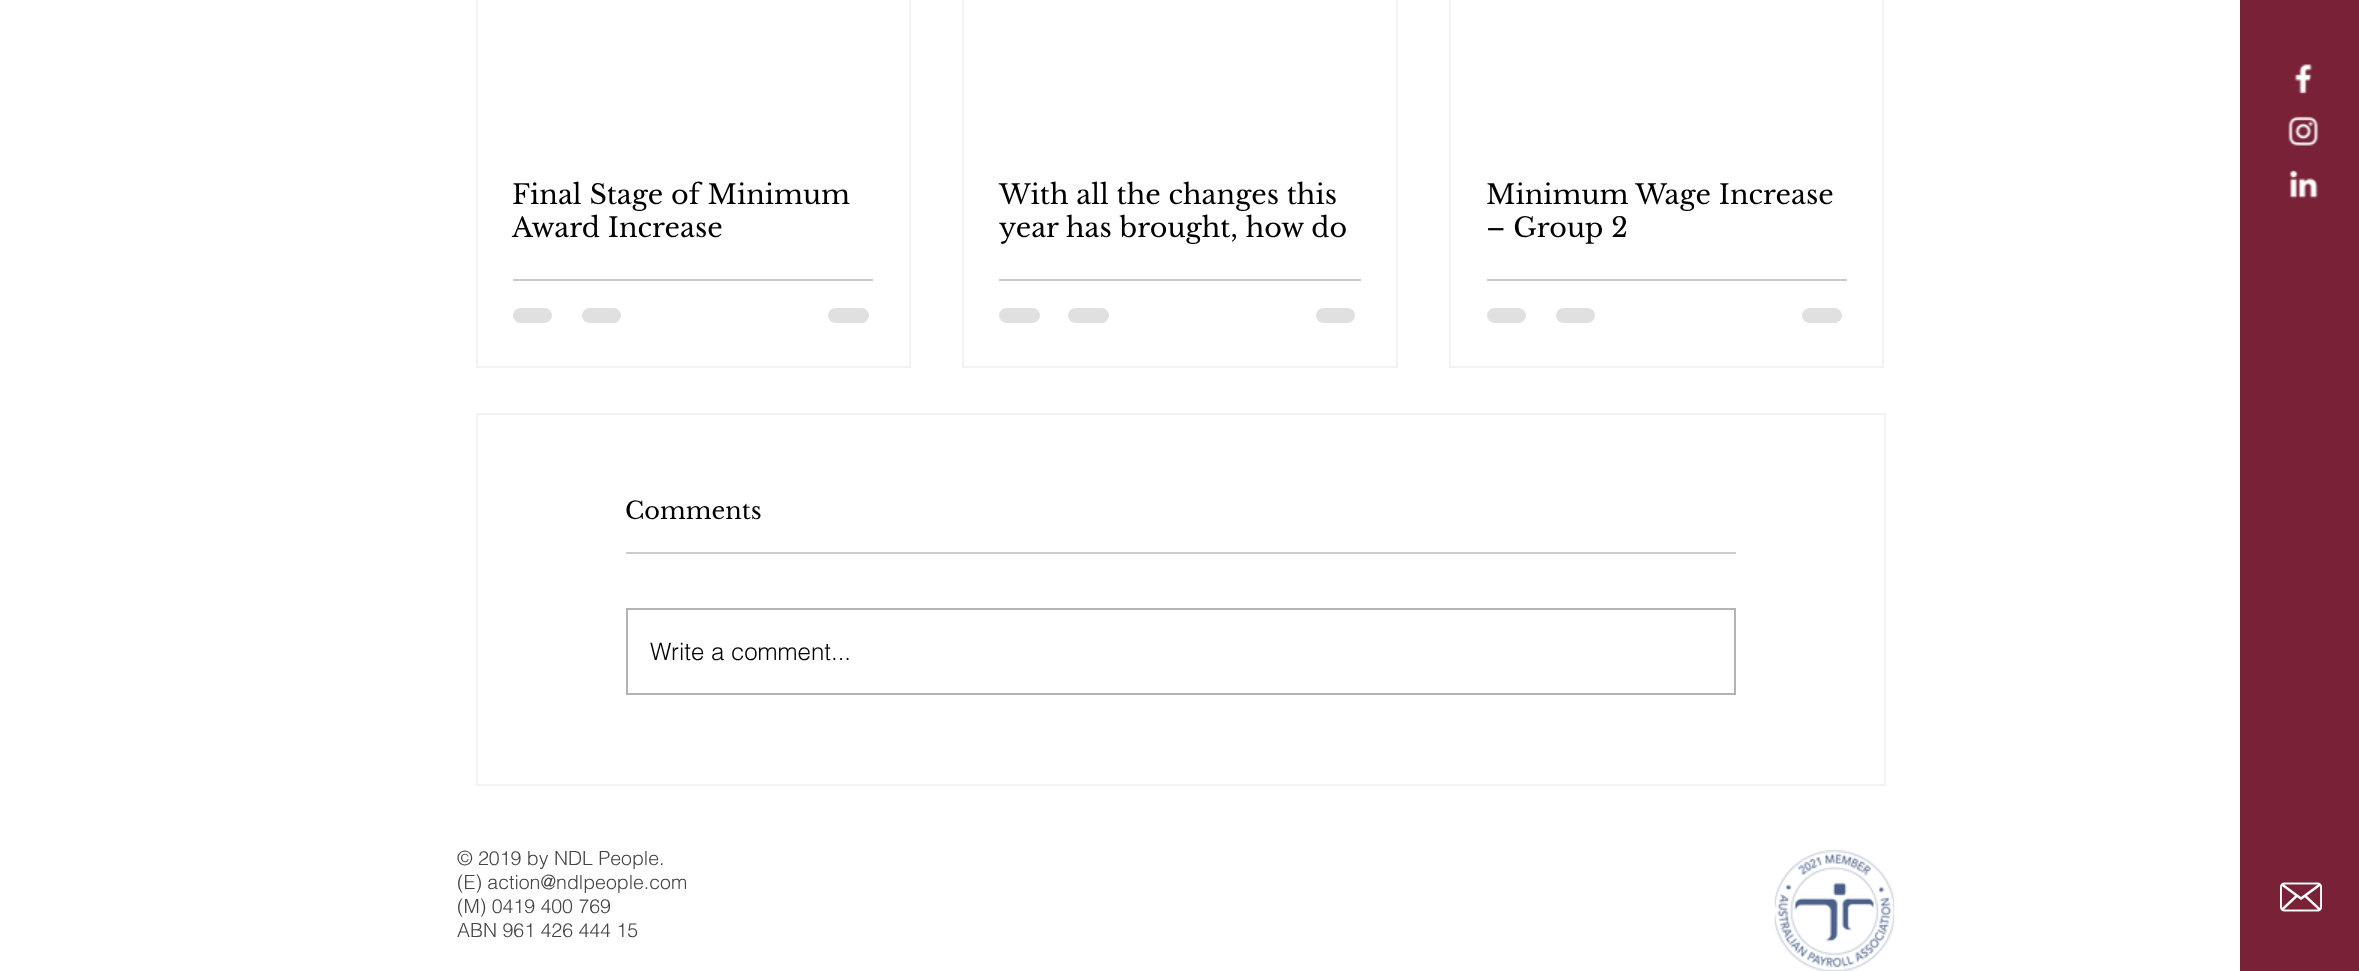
<!DOCTYPE html>
<meta charset="utf-8">
<style>body { margin: 0 } canvas { display: block }</style>
<canvas id="canvas" width="2359" height="971"></canvas>
<img id="img1" src="img_01.png" hidden>
<img id="img2" src="img_02.png" hidden>
<img id="img3" src="img_03.png" hidden>
<img id="img4" src="img_04.png" hidden>
<img id="img5" src="img_05.png" hidden>
<script>
window.onload = function () {
	const canvas = document.getElementById("canvas");
	const ctx = canvas.getContext("2d");
	ctx.miterLimit = 4;
	ctx.fontKerning = "normal";
	function txt(s, x, y) {
		ctx.fillText(s, x, y);
	}
	function fill(x, y, w, h) {
		ctx.fillRect(x, y, w, h);
	}
	function round(x, y, w, h, r) {
		ctx.beginPath();
		ctx.roundRect(x, y, w, h, r);
		ctx.fill();
	}
	function img(id, x, y, w, h) {
		ctx.drawImage(document.getElementById(id), x, y, w, h);
	}

	ctx.fillStyle = "#FFFFFF";
	fill(0, 0, 2359, 971);
	ctx.fillStyle = "#782137";
	fill(2240, 0, 119, 971);
	img("img1", 2294, 64, 19, 30);
	img("img2", 2288, 116, 31, 30);
	img("img3", 2289, 170, 30, 29);
	ctx.strokeStyle = "#F2F2F2";
	ctx.lineWidth = 2;
	ctx.strokeRect(477, -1, 433, 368);
	ctx.fillStyle = "#CCCCCC";
	fill(513, 279, 360, 2);
	ctx.fillStyle = "#E0E0E0";
	round(513, 308, 39, 15, 7.5);
	round(582, 308, 39, 15, 7.5);
	round(828, 308, 41, 15, 7.5);
	ctx.strokeRect(963, -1, 434, 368);
	ctx.fillStyle = "#CCCCCC";
	fill(999, 279, 362, 2);
	ctx.fillStyle = "#E0E0E0";
	round(999, 308, 41, 15, 7.5);
	round(1068, 308, 41, 15, 7.5);
	round(1316, 308, 39, 15, 7.5);
	ctx.strokeRect(1450, -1, 433, 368);
	ctx.fillStyle = "#CCCCCC";
	fill(1487, 279, 360, 2);
	ctx.fillStyle = "#E0E0E0";
	round(1487, 308, 39, 15, 7.5);
	round(1556, 308, 39, 15, 7.5);
	round(1802, 308, 40, 15, 7.5);
	ctx.strokeRect(477, 414, 1408, 371);
	ctx.fillStyle = "#CCCCCC";
	fill(626, 552, 1110, 2);
	ctx.strokeStyle = "#B3B3B3";
	ctx.strokeRect(627, 609, 1108, 85);
	img("img4", 1774, 849, 121, 122);
	img("img5", 2280, 882, 42, 30);
	ctx.font = "27px Libre Baskerville";
	ctx.fillStyle = "#000000";
	txt("Final Stage of Minimum", 512, 204);
	txt("Award Increase", 512, 237);
	txt("With all the changes this", 999, 204);
	txt("year has brought, how do", 999, 237);
	txt("Minimum Wage Increase", 1486, 204);
	txt("– Group 2", 1486, 237);
	ctx.font = "24px Libre Baskerville";
	txt("Comments", 625, 519);
	ctx.font = "300 24px helvetica";
	txt("Write a comment...", 650, 660);
	ctx.font = "300 19.5px helvetica";
	ctx.fillStyle = "#444444";
	txt("© 2019 by NDL People.", 457, 865);
	txt("(E) action@ndlpeople.com", 457, 889);
	txt("(M) 0419 400 769", 457, 913);
	txt("ABN 961 426 444 15", 457, 937);
};
</script>
